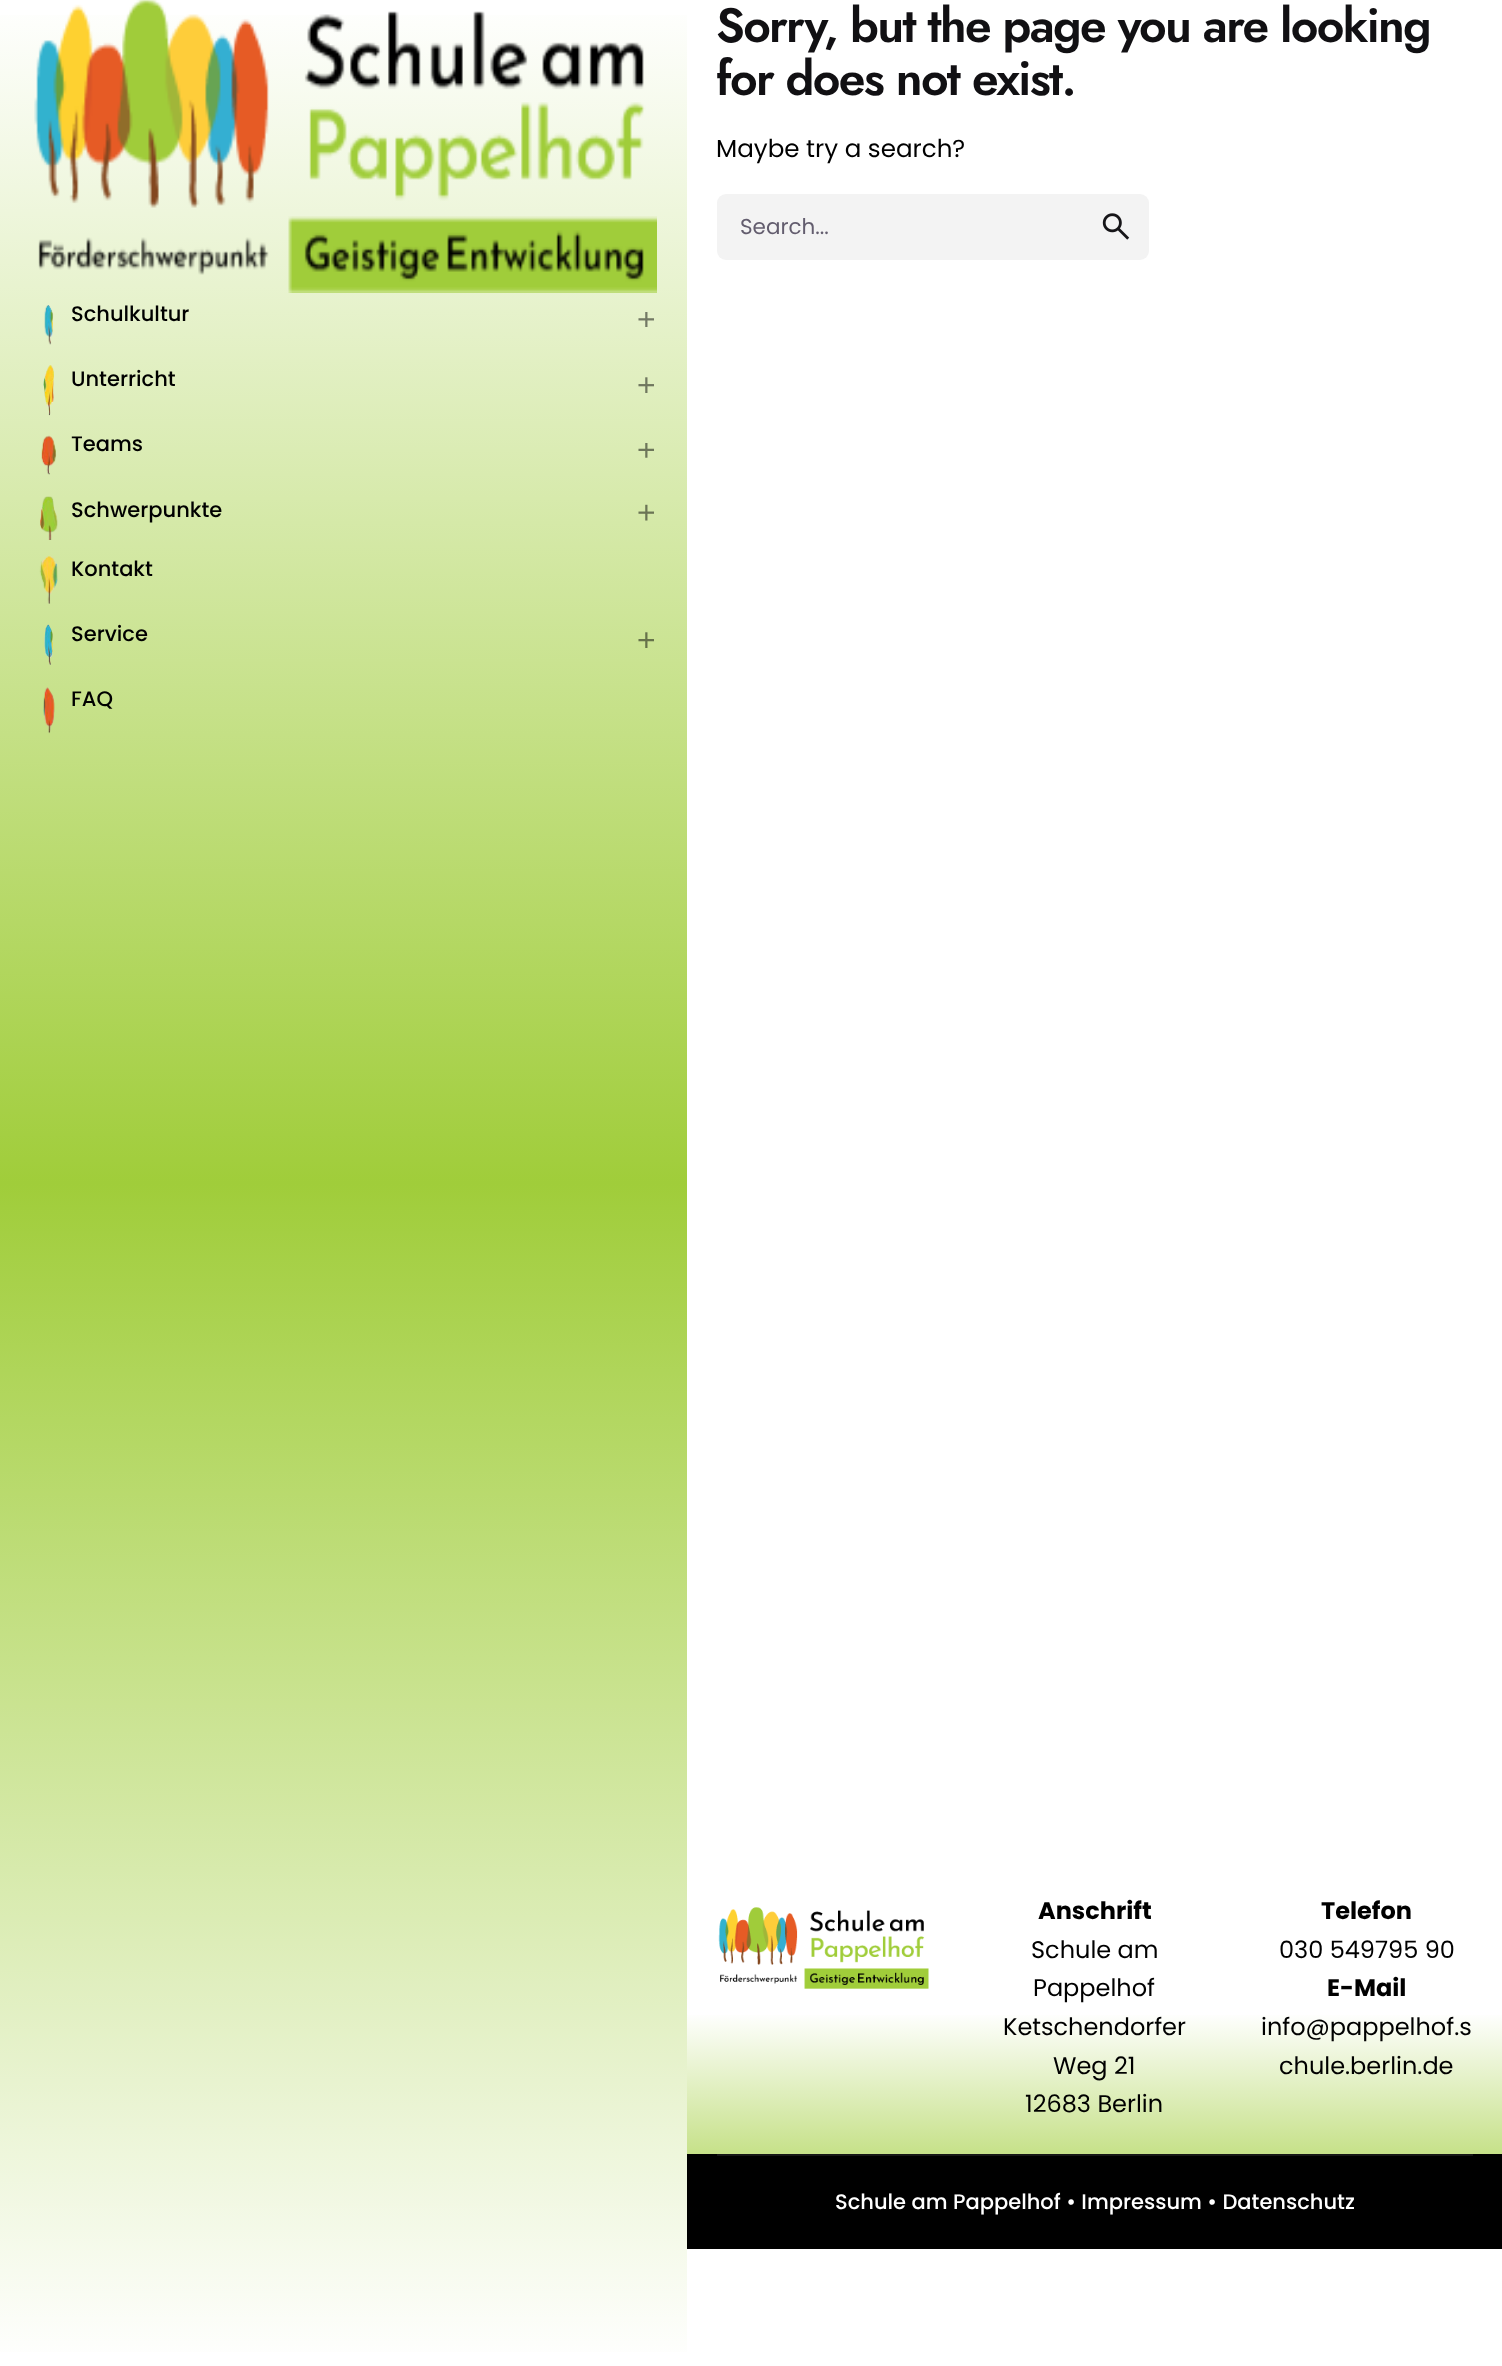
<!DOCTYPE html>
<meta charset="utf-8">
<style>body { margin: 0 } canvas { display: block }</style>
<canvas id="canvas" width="1502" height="2366"></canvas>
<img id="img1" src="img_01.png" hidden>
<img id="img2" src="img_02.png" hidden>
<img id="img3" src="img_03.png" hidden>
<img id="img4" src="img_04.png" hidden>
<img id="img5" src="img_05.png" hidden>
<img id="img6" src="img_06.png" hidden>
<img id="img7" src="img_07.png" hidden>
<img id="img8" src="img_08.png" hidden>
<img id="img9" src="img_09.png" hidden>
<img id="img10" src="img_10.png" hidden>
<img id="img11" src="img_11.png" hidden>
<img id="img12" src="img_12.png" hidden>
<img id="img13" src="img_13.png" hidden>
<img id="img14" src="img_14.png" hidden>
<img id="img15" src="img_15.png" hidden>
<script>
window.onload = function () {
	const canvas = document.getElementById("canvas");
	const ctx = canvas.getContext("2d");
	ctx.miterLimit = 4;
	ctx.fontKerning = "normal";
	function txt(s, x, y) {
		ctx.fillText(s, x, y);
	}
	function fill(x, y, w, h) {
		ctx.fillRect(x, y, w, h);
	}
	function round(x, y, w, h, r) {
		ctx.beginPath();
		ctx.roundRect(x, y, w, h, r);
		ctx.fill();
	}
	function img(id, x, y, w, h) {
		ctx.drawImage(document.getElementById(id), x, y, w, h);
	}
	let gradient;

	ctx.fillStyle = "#FFFFFF";
	fill(0, 0, 1502, 2366);
	ctx.fillStyle = "#F3F3F3";
	round(717, 194, 432, 66, 9);
	img("img1", 1102, 213, 28, 27);
	gradient = ctx.createLinearGradient(344, 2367, 344, 0);
	gradient.addColorStop(0, "#FFFFFF");
	gradient.addColorStop(0.5, "#A0CD3A");
	gradient.addColorStop(1, "#FFFFFF");
	ctx.fillStyle = gradient;
	fill(0, 15, 687, 2337);
	img("img2", 34, 0, 623, 293);
	img("img3", 44, 305, 10, 40);
	img("img4", 638, 312, 16, 15);
	img("img5", 43, 365, 11, 51);
	img("img6", 638, 377, 16, 16);
	img("img7", 41, 435, 16, 40);
	img("img8", 638, 443, 16, 15);
	img("img9", 40, 496, 18, 44);
	img("img10", 638, 504, 16, 17);
	img("img11", 39, 555, 19, 49);
	img("img12", 44, 624, 9, 41);
	img("img13", 638, 632, 16, 16);
	img("img14", 43, 687, 12, 47);
	gradient = ctx.createLinearGradient(1095, 2249, 1095, 1776);
	gradient.addColorStop(0, "#A0CD3A");
	gradient.addColorStop(0.5, "#FFFFFF");
	ctx.fillStyle = gradient;
	fill(687, 2015, 815, 139);
	img("img15", 718, 1907, 211, 82);
	ctx.fillStyle = "#000000";
	fill(687, 2154, 815, 95);
	ctx.fillStyle = "#161616";
	fill(717, 2154, 756, 2);
	ctx.letterSpacing = "-1.7px";
	ctx.font = "600 48px Jost";
	ctx.fillStyle = "#111013";
	txt("Sorry, but the page you are looking", 716, 42);
	txt("for does not exist.", 716, 95);
	ctx.letterSpacing = "0px";
	ctx.font = "24.6px Poppins";
	ctx.fillStyle = "#000000";
	txt("Maybe try a search?", 716, 157);
	ctx.font = "21.5px Poppins";
	ctx.fillStyle = "#635D6E";
	txt("Search...", 740, 234);
	ctx.font = "500 21px Poppins";
	ctx.fillStyle = "#000000";
	txt("Schulkultur", 71, 321);
	txt("Unterricht", 71, 386);
	txt("Teams", 71, 451);
	txt("Schwerpunkte", 71, 517);
	txt("Kontakt", 71, 576);
	txt("Service", 71, 641);
	txt("FAQ", 71, 706);
	ctx.font = "bold 24px Poppins";
	txt("Anschrift", 1038, 1919);
	ctx.font = "24px Poppins";
	txt("Schule am", 1031, 1958);
	txt("Pappelhof", 1033, 1996);
	txt("Ketschendorfer", 1003, 2035);
	txt("Weg 21", 1053, 2074);
	txt("12683 Berlin", 1025, 2112);
	ctx.font = "bold 24px Poppins";
	txt("Telefon", 1321, 1919);
	ctx.font = "24px Poppins";
	txt("030 549795 90", 1279, 1958);
	ctx.font = "bold 24px Poppins";
	txt("E-Mail", 1327, 1996);
	ctx.font = "24px Poppins";
	txt("info@pappelhof.s", 1261, 2035);
	txt("chule.berlin.de", 1279, 2074);
	ctx.font = "500 21px Poppins";
	ctx.fillStyle = "#FFFFFF";
	txt("Schule am Pappelhof • Impressum • Datenschutz", 835, 2209);
};
</script>
